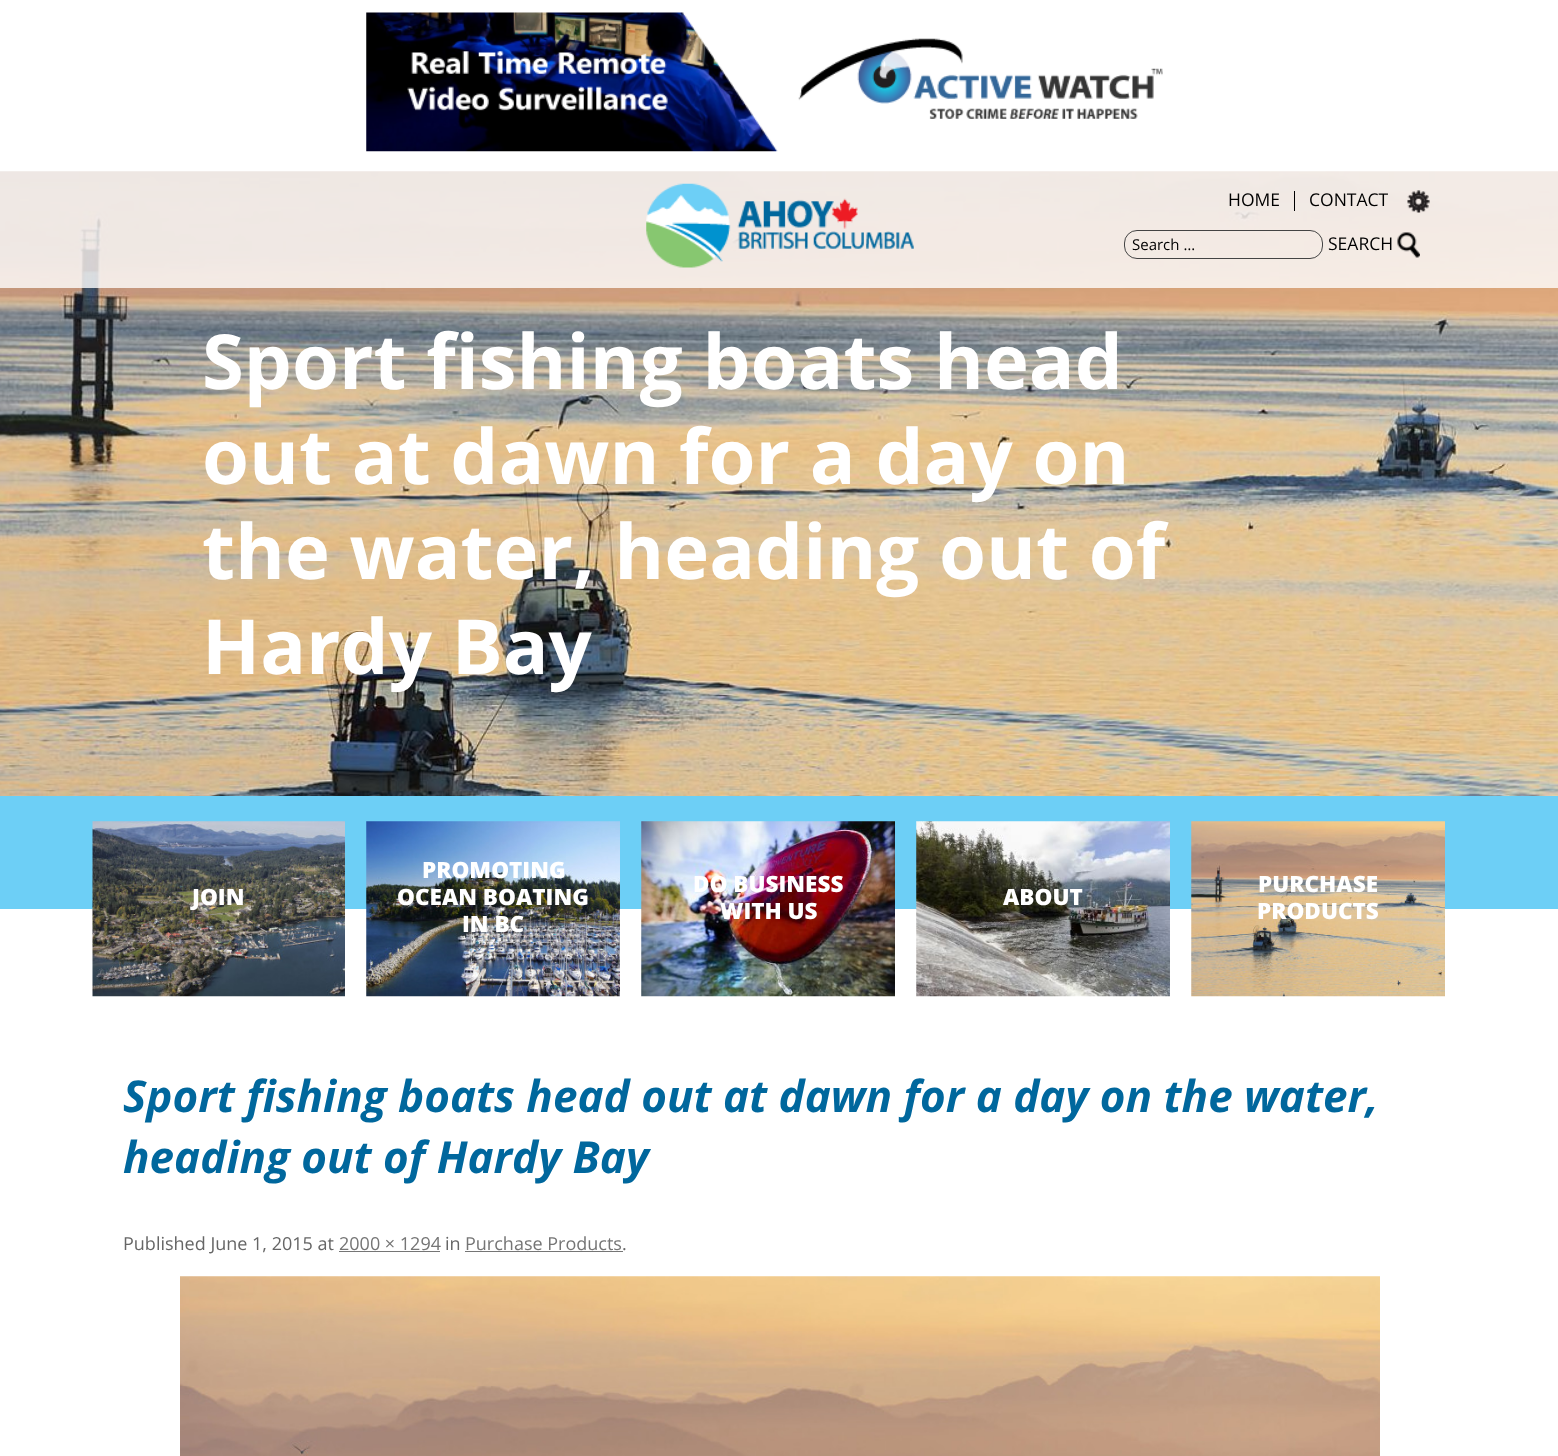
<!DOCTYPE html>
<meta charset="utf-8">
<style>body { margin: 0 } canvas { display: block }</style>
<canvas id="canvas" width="1558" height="1456"></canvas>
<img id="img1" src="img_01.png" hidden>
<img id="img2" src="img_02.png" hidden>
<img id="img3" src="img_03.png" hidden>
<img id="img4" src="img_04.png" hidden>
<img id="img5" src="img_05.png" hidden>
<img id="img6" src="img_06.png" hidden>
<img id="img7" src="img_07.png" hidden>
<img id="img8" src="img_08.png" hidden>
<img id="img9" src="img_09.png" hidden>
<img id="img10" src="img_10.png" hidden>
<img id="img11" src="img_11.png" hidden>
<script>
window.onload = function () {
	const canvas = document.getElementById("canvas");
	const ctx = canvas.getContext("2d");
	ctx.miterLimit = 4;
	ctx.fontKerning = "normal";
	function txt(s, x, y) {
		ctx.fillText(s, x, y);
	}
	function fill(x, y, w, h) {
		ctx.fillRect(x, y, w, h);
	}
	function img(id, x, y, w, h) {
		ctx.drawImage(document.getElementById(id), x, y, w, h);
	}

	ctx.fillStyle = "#FFFFFF";
	fill(0, 0, 1558, 1456);
	img("img1", 366, 12, 797, 140);
	img("img2", 0, 171, 1558, 625);
	ctx.fillStyle = "#6DCFF6";
	fill(0, 796, 1558, 113);
	ctx.fillStyle = "rgba(255, 255, 255, 0.8)";
	fill(0, 171, 1558, 117);
	img("img3", 646, 183, 268, 85);
	ctx.fillStyle = "#000000";
	fill(1294, 191, 1, 20);
	img("img4", 1407, 190, 23, 23);
	ctx.beginPath();
	ctx.roundRect(1124.5, 230.5, 198, 28, 12.5);
	ctx.strokeStyle = "#444444";
	ctx.stroke();
	img("img5", 1397, 232, 23, 26);
	img("img6", 92, 821, 253, 176);
	img("img7", 366, 821, 254, 176);
	img("img8", 641, 821, 254, 176);
	img("img9", 916, 821, 254, 176);
	img("img10", 1191, 821, 254, 176);
	ctx.fillStyle = "#757575";
	fill(339, 1251, 101, 1);
	fill(465, 1251, 158, 1);
	img("img11", 180, 1276, 1200, 180);
	ctx.font = "17.5px Open Sans";
	ctx.fillStyle = "#000000";
	txt("HOME", 1228, 206);
	txt("CONTACT", 1309, 206);
	ctx.font = "15px Open Sans";
	txt("Search …", 1132, 250);
	ctx.font = "17.5px Open Sans";
	txt("SEARCH", 1328, 250);
	ctx.font = "bold 76px Open Sans";
	ctx.fillStyle = "#FFFFFF";
	txt("Sport fishing boats head", 202, 389);
	txt("out at dawn for a day on", 202, 484);
	txt("the water, heading out of", 202, 579);
	txt("Hardy Bay", 202, 674);
	ctx.font = "800 22.5px Open Sans";
	txt("JOIN", 192, 905);
	txt("PROMOTING", 422, 878);
	txt("OCEAN BOATING", 397, 905);
	txt("IN BC", 462, 932);
	txt("DO BUSINESS", 693, 892);
	txt("WITH US", 720, 919);
	txt("ABOUT", 1003, 905);
	txt("PURCHASE", 1258, 892);
	txt("PRODUCTS", 1257, 919);
	ctx.font = "italic bold 44px Open Sans";
	ctx.fillStyle = "#00679D";
	txt("Sport fishing boats head out at dawn for a day on the water,", 123, 1112);
	txt("heading out of Hardy Bay", 123, 1173);
	ctx.font = "18px Open Sans";
	ctx.fillStyle = "#666666";
	txt("Published June 1, 2015 at", 123, 1250);
	ctx.fillStyle = "#757575";
	txt("2000 × 1294", 339, 1250);
	ctx.fillStyle = "#666666";
	txt("in", 445, 1250);
	ctx.fillStyle = "#757575";
	txt("Purchase Products", 465, 1250);
	ctx.fillStyle = "#666666";
	txt(".", 622, 1250);
};
</script>
